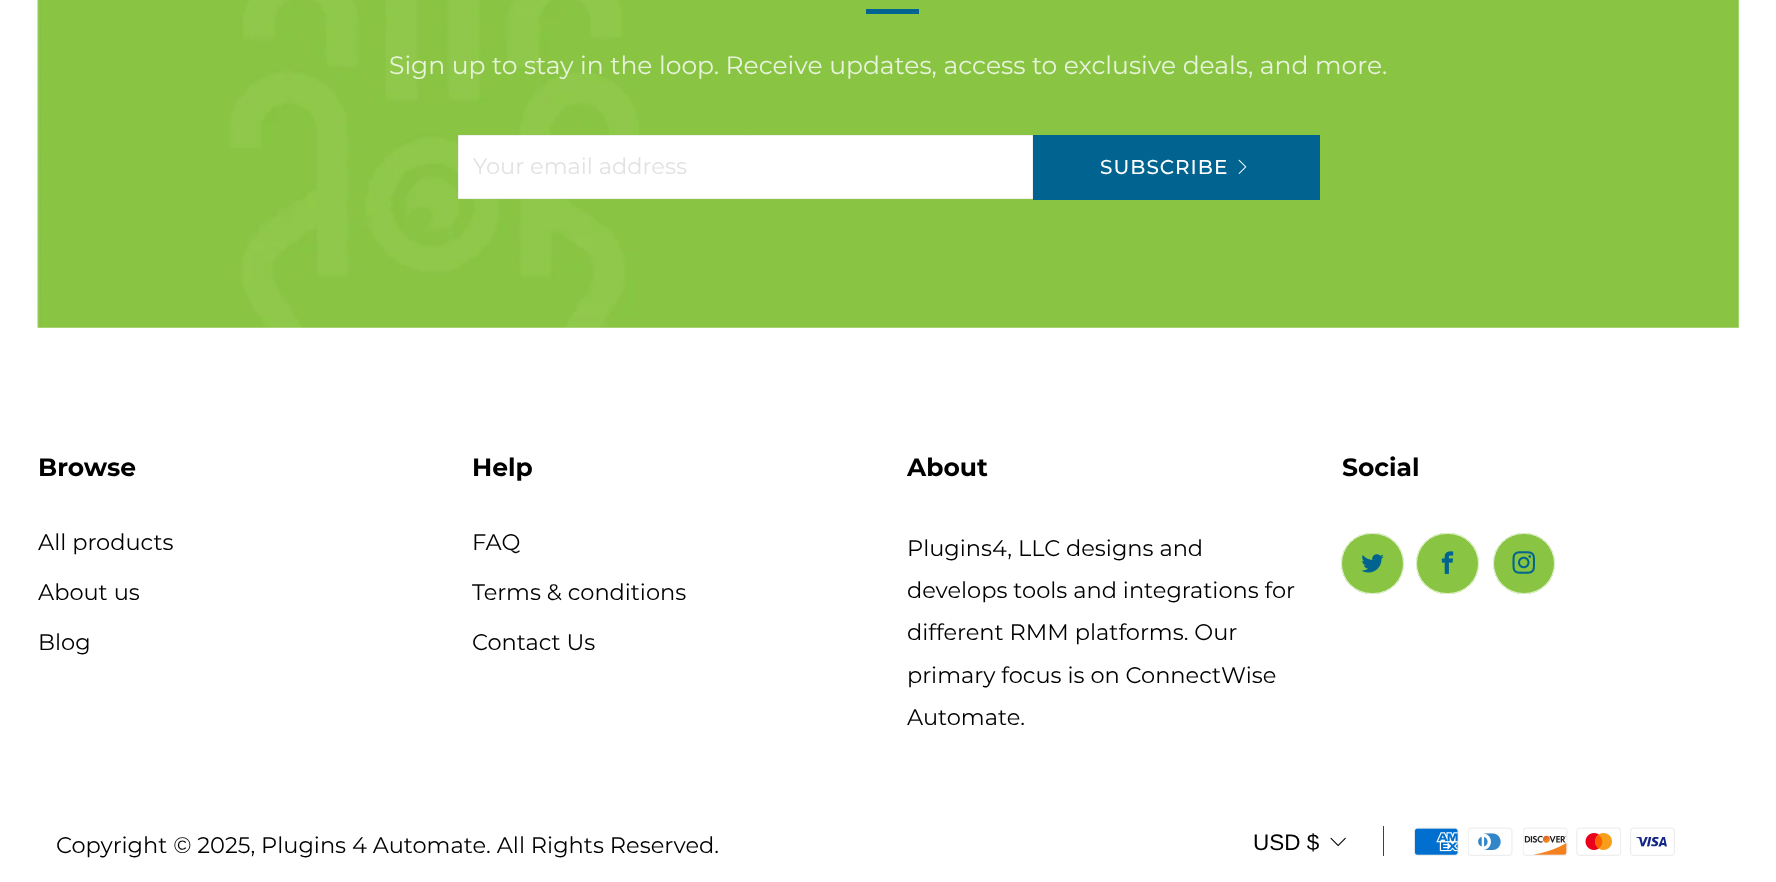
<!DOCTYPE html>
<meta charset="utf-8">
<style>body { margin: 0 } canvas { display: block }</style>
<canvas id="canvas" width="1776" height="882"></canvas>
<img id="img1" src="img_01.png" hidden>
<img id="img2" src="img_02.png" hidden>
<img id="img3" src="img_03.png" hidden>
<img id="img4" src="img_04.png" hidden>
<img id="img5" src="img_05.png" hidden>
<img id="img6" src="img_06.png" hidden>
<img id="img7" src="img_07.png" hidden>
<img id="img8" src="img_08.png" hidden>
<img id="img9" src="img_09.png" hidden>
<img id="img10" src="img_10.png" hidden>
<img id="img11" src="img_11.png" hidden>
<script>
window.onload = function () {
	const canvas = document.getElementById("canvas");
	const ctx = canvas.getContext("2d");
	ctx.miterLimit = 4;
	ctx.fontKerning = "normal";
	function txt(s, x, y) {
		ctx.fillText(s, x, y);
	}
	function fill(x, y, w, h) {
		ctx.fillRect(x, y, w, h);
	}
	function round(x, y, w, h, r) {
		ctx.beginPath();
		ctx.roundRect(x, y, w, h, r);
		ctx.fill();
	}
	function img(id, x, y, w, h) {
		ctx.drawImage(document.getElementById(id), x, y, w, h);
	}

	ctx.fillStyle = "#FFFFFF";
	fill(0, 0, 1776, 882);
	img("img1", 37, 0, 1702, 328);
	ctx.fillStyle = "#006390";
	fill(866, 9, 53, 5);
	ctx.fillStyle = "#FFFFFF";
	ctx.beginPath();
	ctx.rect(458.5, 135.5, 574, 63);
	ctx.fill();
	ctx.strokeStyle = "#F0F0F0";
	ctx.stroke();
	ctx.fillStyle = "#006390";
	fill(1033, 135, 287, 65);
	img("img2", 1238, 159, 9, 15);
	ctx.fillStyle = "#89C542";
	round(1341, 533, 63, 61, 30.5);
	ctx.beginPath();
	ctx.roundRect(1341.5, 533.5, 62, 60, 30);
	ctx.strokeStyle = "rgba(255, 255, 255, 0.8)";
	ctx.stroke();
	img("img3", 1361, 554, 23, 19);
	round(1416, 533, 63, 61, 30.5);
	ctx.beginPath();
	ctx.roundRect(1416.5, 533.5, 62, 60, 30);
	ctx.stroke();
	img("img4", 1441, 551, 13, 23);
	round(1493, 533, 62, 61, 30.5);
	ctx.beginPath();
	ctx.roundRect(1493.5, 533.5, 61, 60, 30);
	ctx.stroke();
	img("img5", 1512, 551, 23, 23);
	img("img6", 1330, 837, 16, 10);
	ctx.fillStyle = "#414141";
	fill(1383, 826, 1, 30);
	img("img7", 1414, 827, 45, 29);
	img("img8", 1468, 827, 45, 29);
	img("img9", 1523, 827, 45, 29);
	img("img10", 1576, 827, 45, 29);
	img("img11", 1630, 827, 45, 29);
	ctx.font = "25px Montserrat";
	ctx.fillStyle = "#E7F3DA";
	txt("Sign up to stay in the loop. Receive updates, access to exclusive deals, and more.", 389, 74);
	ctx.font = "22.5px Montserrat";
	ctx.fillStyle = "#E2E2E2";
	txt("Your email address", 473, 174);
	ctx.letterSpacing = "1px";
	ctx.font = "500 20px Montserrat";
	ctx.fillStyle = "#FFFFFF";
	txt("SUBSCRIBE", 1100, 174);
	ctx.letterSpacing = "0px";
	ctx.font = "bold 25px Montserrat";
	ctx.fillStyle = "#000000";
	txt("Browse", 38, 476);
	ctx.font = "22.5px Montserrat";
	txt("All products", 38, 550);
	txt("About us", 38, 600);
	txt("Blog", 38, 650);
	ctx.font = "bold 25px Montserrat";
	txt("Help", 472, 476);
	ctx.font = "22.5px Montserrat";
	txt("FAQ", 472, 550);
	txt("Terms & conditions", 472, 600);
	txt("Contact Us", 472, 650);
	ctx.font = "bold 25px Montserrat";
	txt("About", 907, 476);
	ctx.font = "22.5px Montserrat";
	txt("Plugins4, LLC designs and", 907, 556);
	txt("develops tools and integrations for", 907, 598);
	txt("different RMM platforms. Our", 907, 640);
	txt("primary focus is on ConnectWise", 907, 683);
	txt("Automate.", 907, 725);
	ctx.font = "bold 25px Montserrat";
	txt("Social", 1342, 476);
	ctx.font = "22.5px Montserrat";
	txt("Copyright © 2025, Plugins 4 Automate. All Rights Reserved.", 56, 853);
	ctx.font = "22.5px Liberation Sans";
	txt("USD $", 1253, 850);
};
</script>
